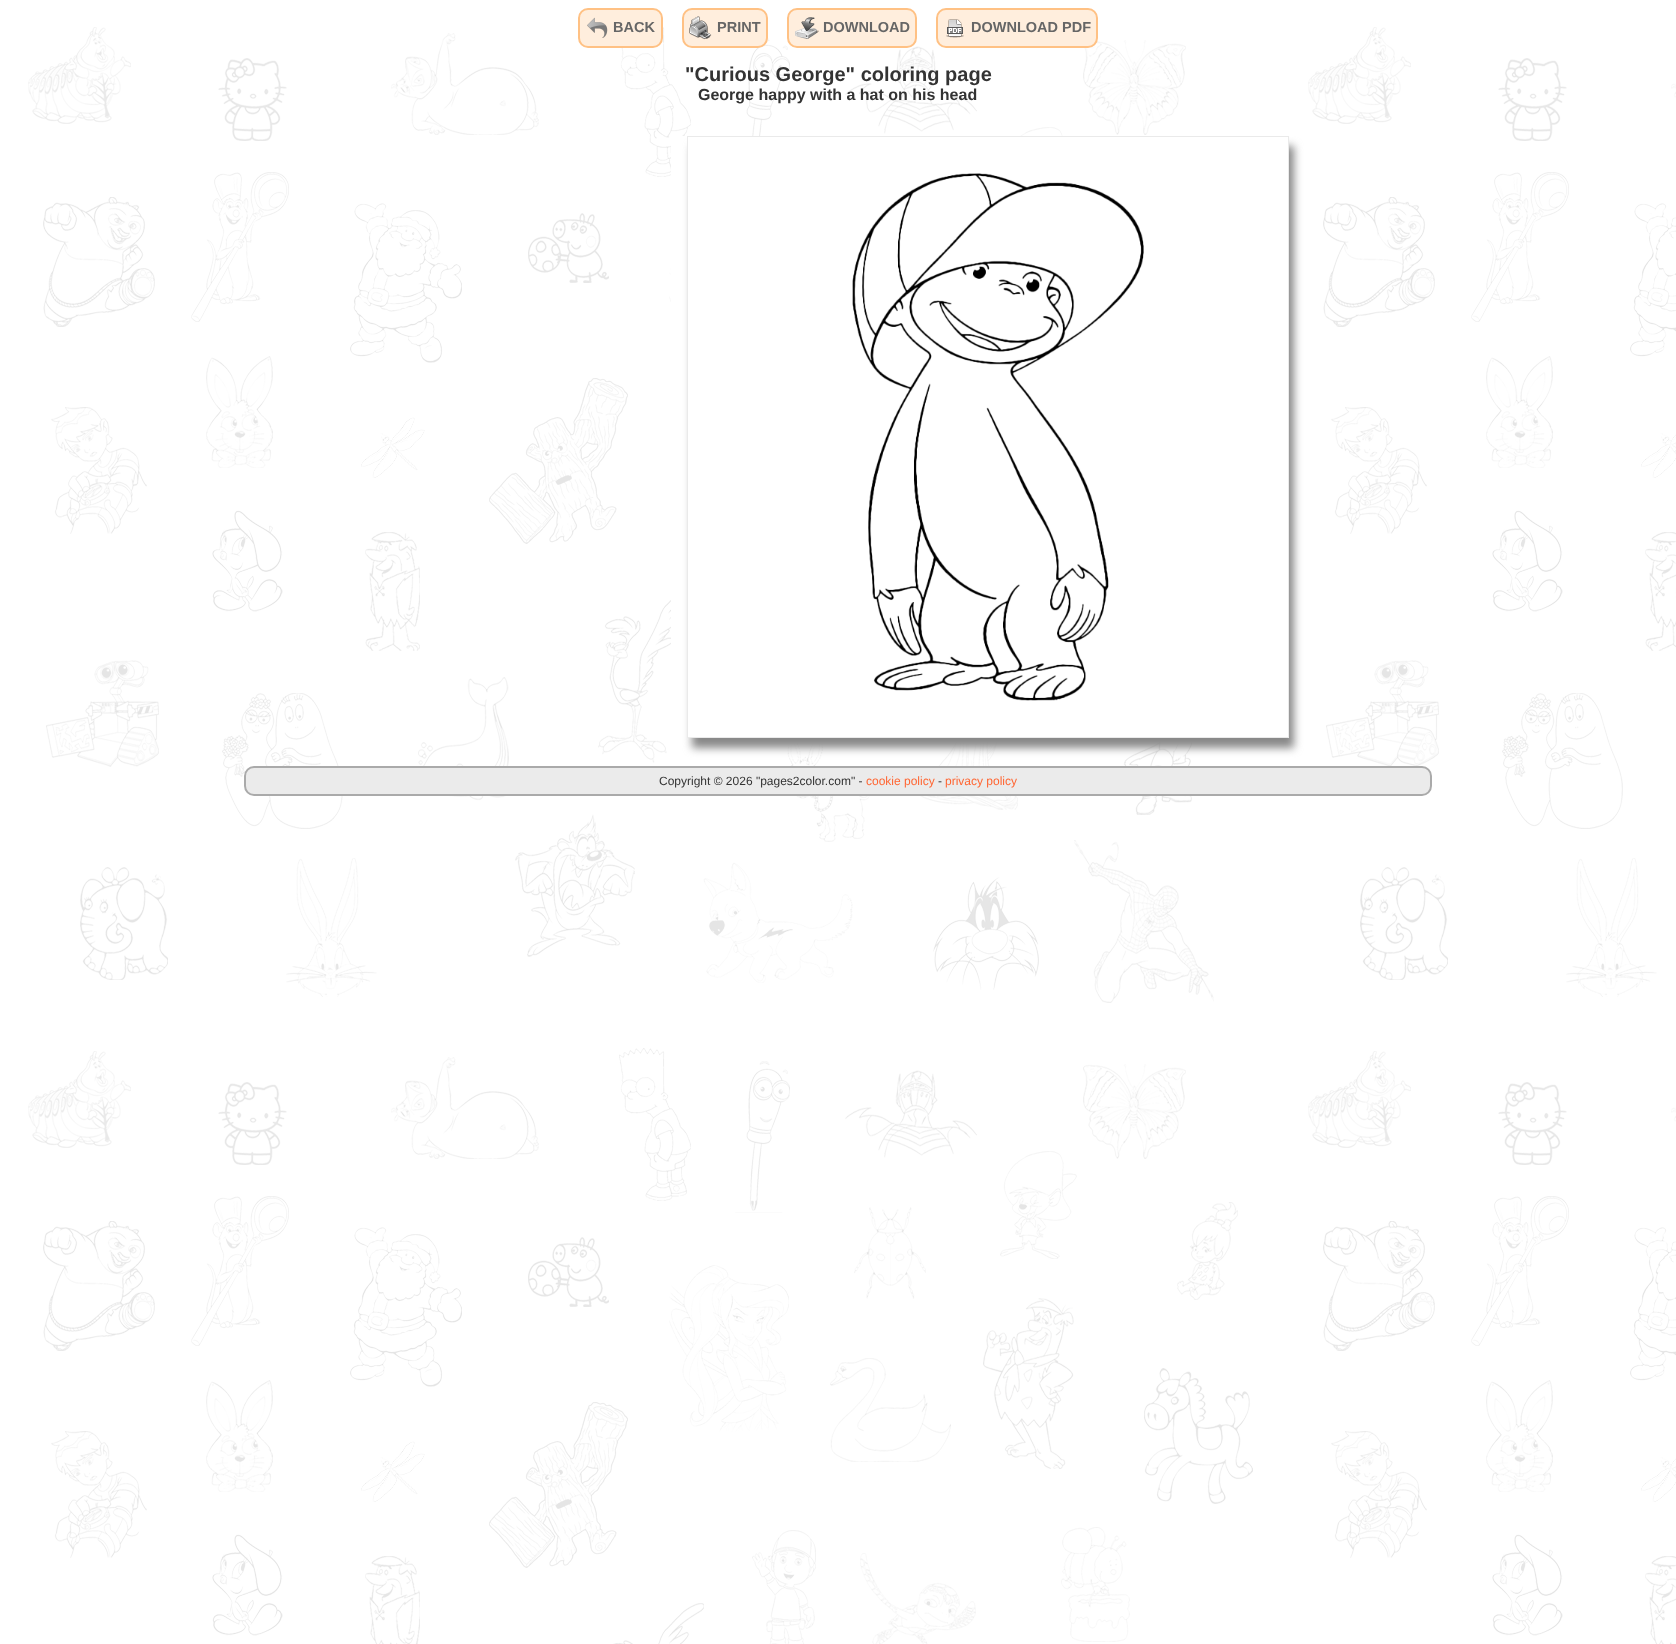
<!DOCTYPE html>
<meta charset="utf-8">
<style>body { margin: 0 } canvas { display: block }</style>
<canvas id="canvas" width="1676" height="1644"></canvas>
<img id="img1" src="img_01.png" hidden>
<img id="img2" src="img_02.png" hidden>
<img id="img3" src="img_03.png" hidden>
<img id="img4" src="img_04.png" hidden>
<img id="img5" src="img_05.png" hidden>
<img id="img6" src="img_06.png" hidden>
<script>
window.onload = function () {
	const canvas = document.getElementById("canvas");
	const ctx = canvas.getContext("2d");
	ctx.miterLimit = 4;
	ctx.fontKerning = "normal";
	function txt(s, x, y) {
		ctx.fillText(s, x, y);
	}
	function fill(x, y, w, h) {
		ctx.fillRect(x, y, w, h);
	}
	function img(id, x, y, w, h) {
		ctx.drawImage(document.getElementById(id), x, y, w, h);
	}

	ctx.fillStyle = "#FFFFFF";
	fill(0, 0, 1676, 1644);
	img("img1", 28, 24, 1648, 1620);
	ctx.fillStyle = "#FFEEDD";
	ctx.beginPath();
	ctx.roundRect(579, 9, 83, 38, 9);
	ctx.fill();
	ctx.strokeStyle = "#FFC184";
	ctx.lineWidth = 2;
	ctx.stroke();
	img("img2", 587, 17, 21, 21);
	ctx.beginPath();
	ctx.roundRect(683, 9, 84, 38, 9);
	ctx.fill();
	ctx.stroke();
	img("img3", 689, 16, 23, 24);
	ctx.beginPath();
	ctx.roundRect(788, 9, 128, 38, 9);
	ctx.fill();
	ctx.stroke();
	img("img4", 795, 17, 24, 22);
	ctx.beginPath();
	ctx.roundRect(937, 9, 160, 38, 9);
	ctx.fill();
	ctx.stroke();
	img("img5", 946, 19, 18, 19);
	ctx.fillStyle = "#FFFFFF";
	fill(671, 136, 582, 606);
	ctx.save();
	ctx.beginPath();
	ctx.moveTo(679, 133);
	ctx.lineTo(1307, 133);
	ctx.lineTo(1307, 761);
	ctx.lineTo(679, 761);
	ctx.closePath();
	ctx.moveTo(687, 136);
	ctx.lineTo(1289, 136);
	ctx.lineTo(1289, 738);
	ctx.lineTo(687, 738);
	ctx.closePath();
	ctx.clip("evenodd");
	ctx.fillStyle = "#888888";
	ctx.filter = "blur(4px)";
	ctx.beginPath();
	ctx.rect(692, 146, 602, 602);
	ctx.fill();
	ctx.filter = "none";
	ctx.restore();
	ctx.strokeStyle = "#EAEAEA";
	ctx.lineWidth = 1;
	ctx.strokeRect(687.5, 136.5, 601, 601);
	img("img6", 852, 173, 292, 528);
	ctx.fillStyle = "#EBEBEB";
	ctx.beginPath();
	ctx.roundRect(245, 767, 1186, 28, 9);
	ctx.fill();
	ctx.strokeStyle = "#AAAAAA";
	ctx.lineWidth = 2;
	ctx.stroke();
	ctx.font = "bold 14.5px Liberation Sans";
	ctx.fillStyle = "#666666";
	txt("BACK", 613, 32);
	txt("PRINT", 717, 32);
	txt("DOWNLOAD", 823, 32);
	txt("DOWNLOAD PDF", 971, 32);
	ctx.font = "bold 20px Liberation Sans";
	ctx.fillStyle = "#333333";
	txt("\"Curious George\" coloring page", 685, 81);
	ctx.font = "bold 16px Liberation Sans";
	txt("George happy with a hat on his head", 698, 100);
	ctx.font = "12px Liberation Sans";
	txt("Copyright © 2026 \"pages2color.com\" -", 659, 785);
	ctx.fillStyle = "#FF6633";
	txt("cookie policy", 866, 785);
	ctx.fillStyle = "#333333";
	txt("-", 938, 785);
	ctx.fillStyle = "#FF6633";
	txt("privacy policy", 945, 785);
};
</script>
